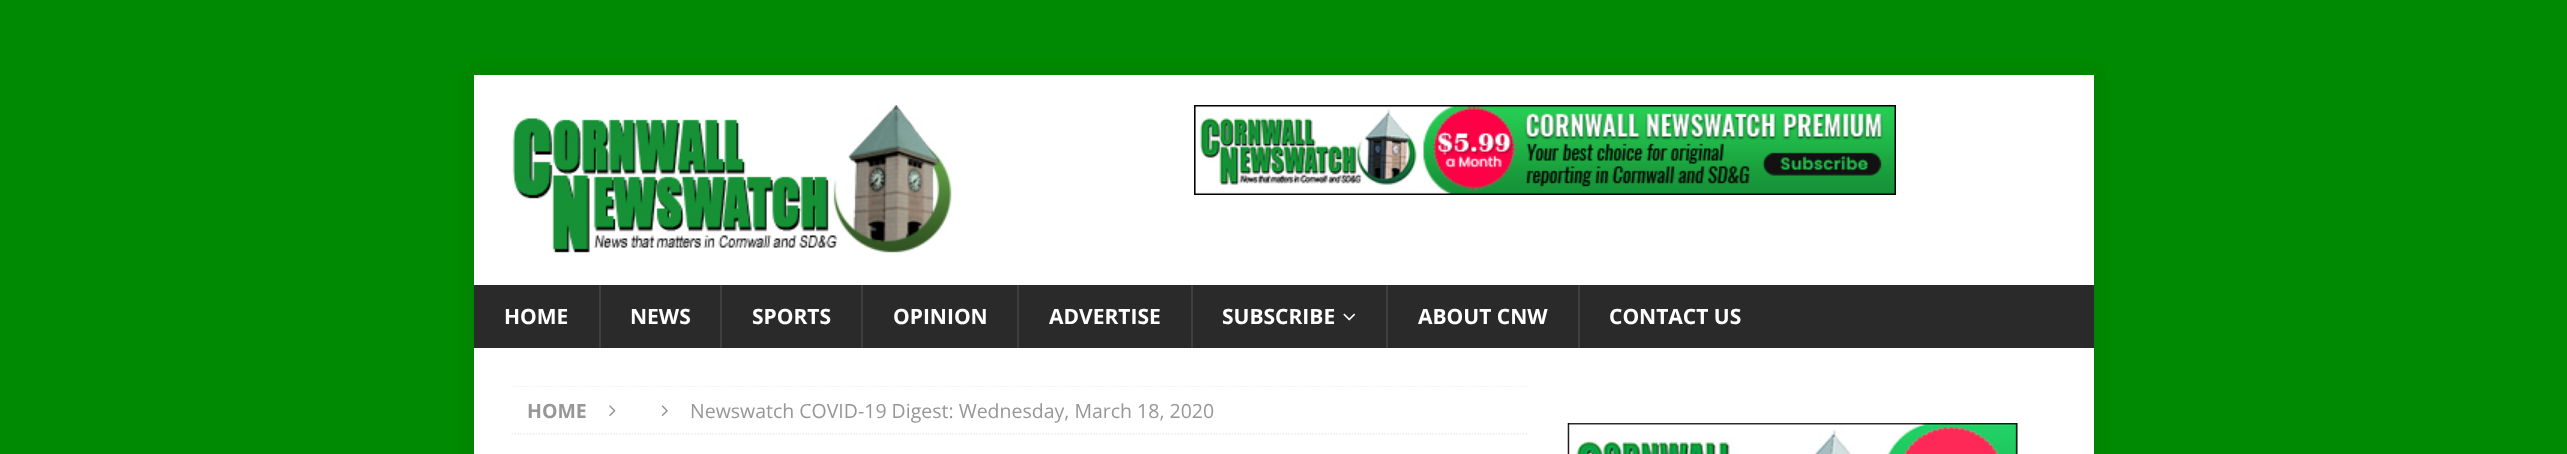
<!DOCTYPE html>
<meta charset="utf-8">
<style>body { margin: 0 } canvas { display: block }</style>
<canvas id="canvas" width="2567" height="454"></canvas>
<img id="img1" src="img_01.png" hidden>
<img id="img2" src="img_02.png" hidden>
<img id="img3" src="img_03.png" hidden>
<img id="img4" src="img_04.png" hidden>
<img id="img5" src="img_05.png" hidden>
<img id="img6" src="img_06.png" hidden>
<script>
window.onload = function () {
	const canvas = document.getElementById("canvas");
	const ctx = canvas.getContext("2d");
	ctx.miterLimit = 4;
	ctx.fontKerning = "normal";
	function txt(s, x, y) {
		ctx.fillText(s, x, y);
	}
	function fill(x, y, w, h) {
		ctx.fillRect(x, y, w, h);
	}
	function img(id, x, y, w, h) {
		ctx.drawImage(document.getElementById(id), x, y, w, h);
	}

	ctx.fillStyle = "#008902";
	fill(0, 0, 2567, 454);
	ctx.fillStyle = "rgba(50, 50, 50, 0.17)";
	ctx.filter = "blur(7.5px)";
	ctx.beginPath();
	ctx.rect(474, 75, 1620, 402);
	ctx.fill();
	ctx.filter = "none";
	ctx.fillStyle = "#FFFFFF";
	fill(474, 75, 1620, 210);
	img("img1", 512, 105, 440, 148);
	img("img2", 1194, 105, 702, 90);
	ctx.fillStyle = "#2A2A2A";
	fill(474, 285, 1620, 63);
	ctx.fillStyle = "#3F3F3F";
	fill(599, 285, 2, 63);
	fill(720, 285, 2, 63);
	fill(861, 285, 2, 63);
	fill(1017, 285, 2, 63);
	fill(1191, 285, 2, 63);
	img("img3", 1343, 313, 13, 8);
	fill(1386, 285, 2, 63);
	fill(1578, 285, 2, 63);
	ctx.fillStyle = "#FFFFFF";
	fill(474, 348, 1620, 106);
	ctx.save();
	ctx.beginPath();
	ctx.rect(512, 386, 1017, 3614);
	ctx.clip();
	ctx.beginPath();
	ctx.moveTo(511.5, 386);
	ctx.lineTo(1528.5, 386);
	ctx.strokeStyle = "#EBEBEB";
	ctx.lineWidth = 1.5;
	ctx.setLineDash([1.5, 1.5]);
	ctx.stroke();
	ctx.restore();
	ctx.beginPath();
	ctx.moveTo(511.5, 434);
	ctx.lineTo(1528.5, 434);
	ctx.strokeStyle = "#EBEBEB";
	ctx.lineWidth = 1.5;
	ctx.setLineDash([1.5, 1.5]);
	ctx.stroke();
	img("img4", 609, 405, 7, 11);
	img("img5", 661, 405, 7, 12);
	img("img6", 1567, 423, 451, 31);
	ctx.font = "bold 21px Open Sans";
	txt("HOME", 504, 324);
	txt("NEWS", 630, 324);
	txt("SPORTS", 752, 324);
	txt("OPINION", 893, 324);
	txt("ADVERTISE", 1049, 324);
	txt("SUBSCRIBE", 1222, 324);
	txt("ABOUT CNW", 1418, 324);
	txt("CONTACT US", 1609, 324);
	ctx.font = "bold 19.5px Open Sans";
	ctx.fillStyle = "#979797";
	txt("HOME", 527, 418);
	ctx.font = "19.5px Open Sans";
	txt("Newswatch COVID-19 Digest: Wednesday, March 18, 2020", 690, 418);
};
</script>
